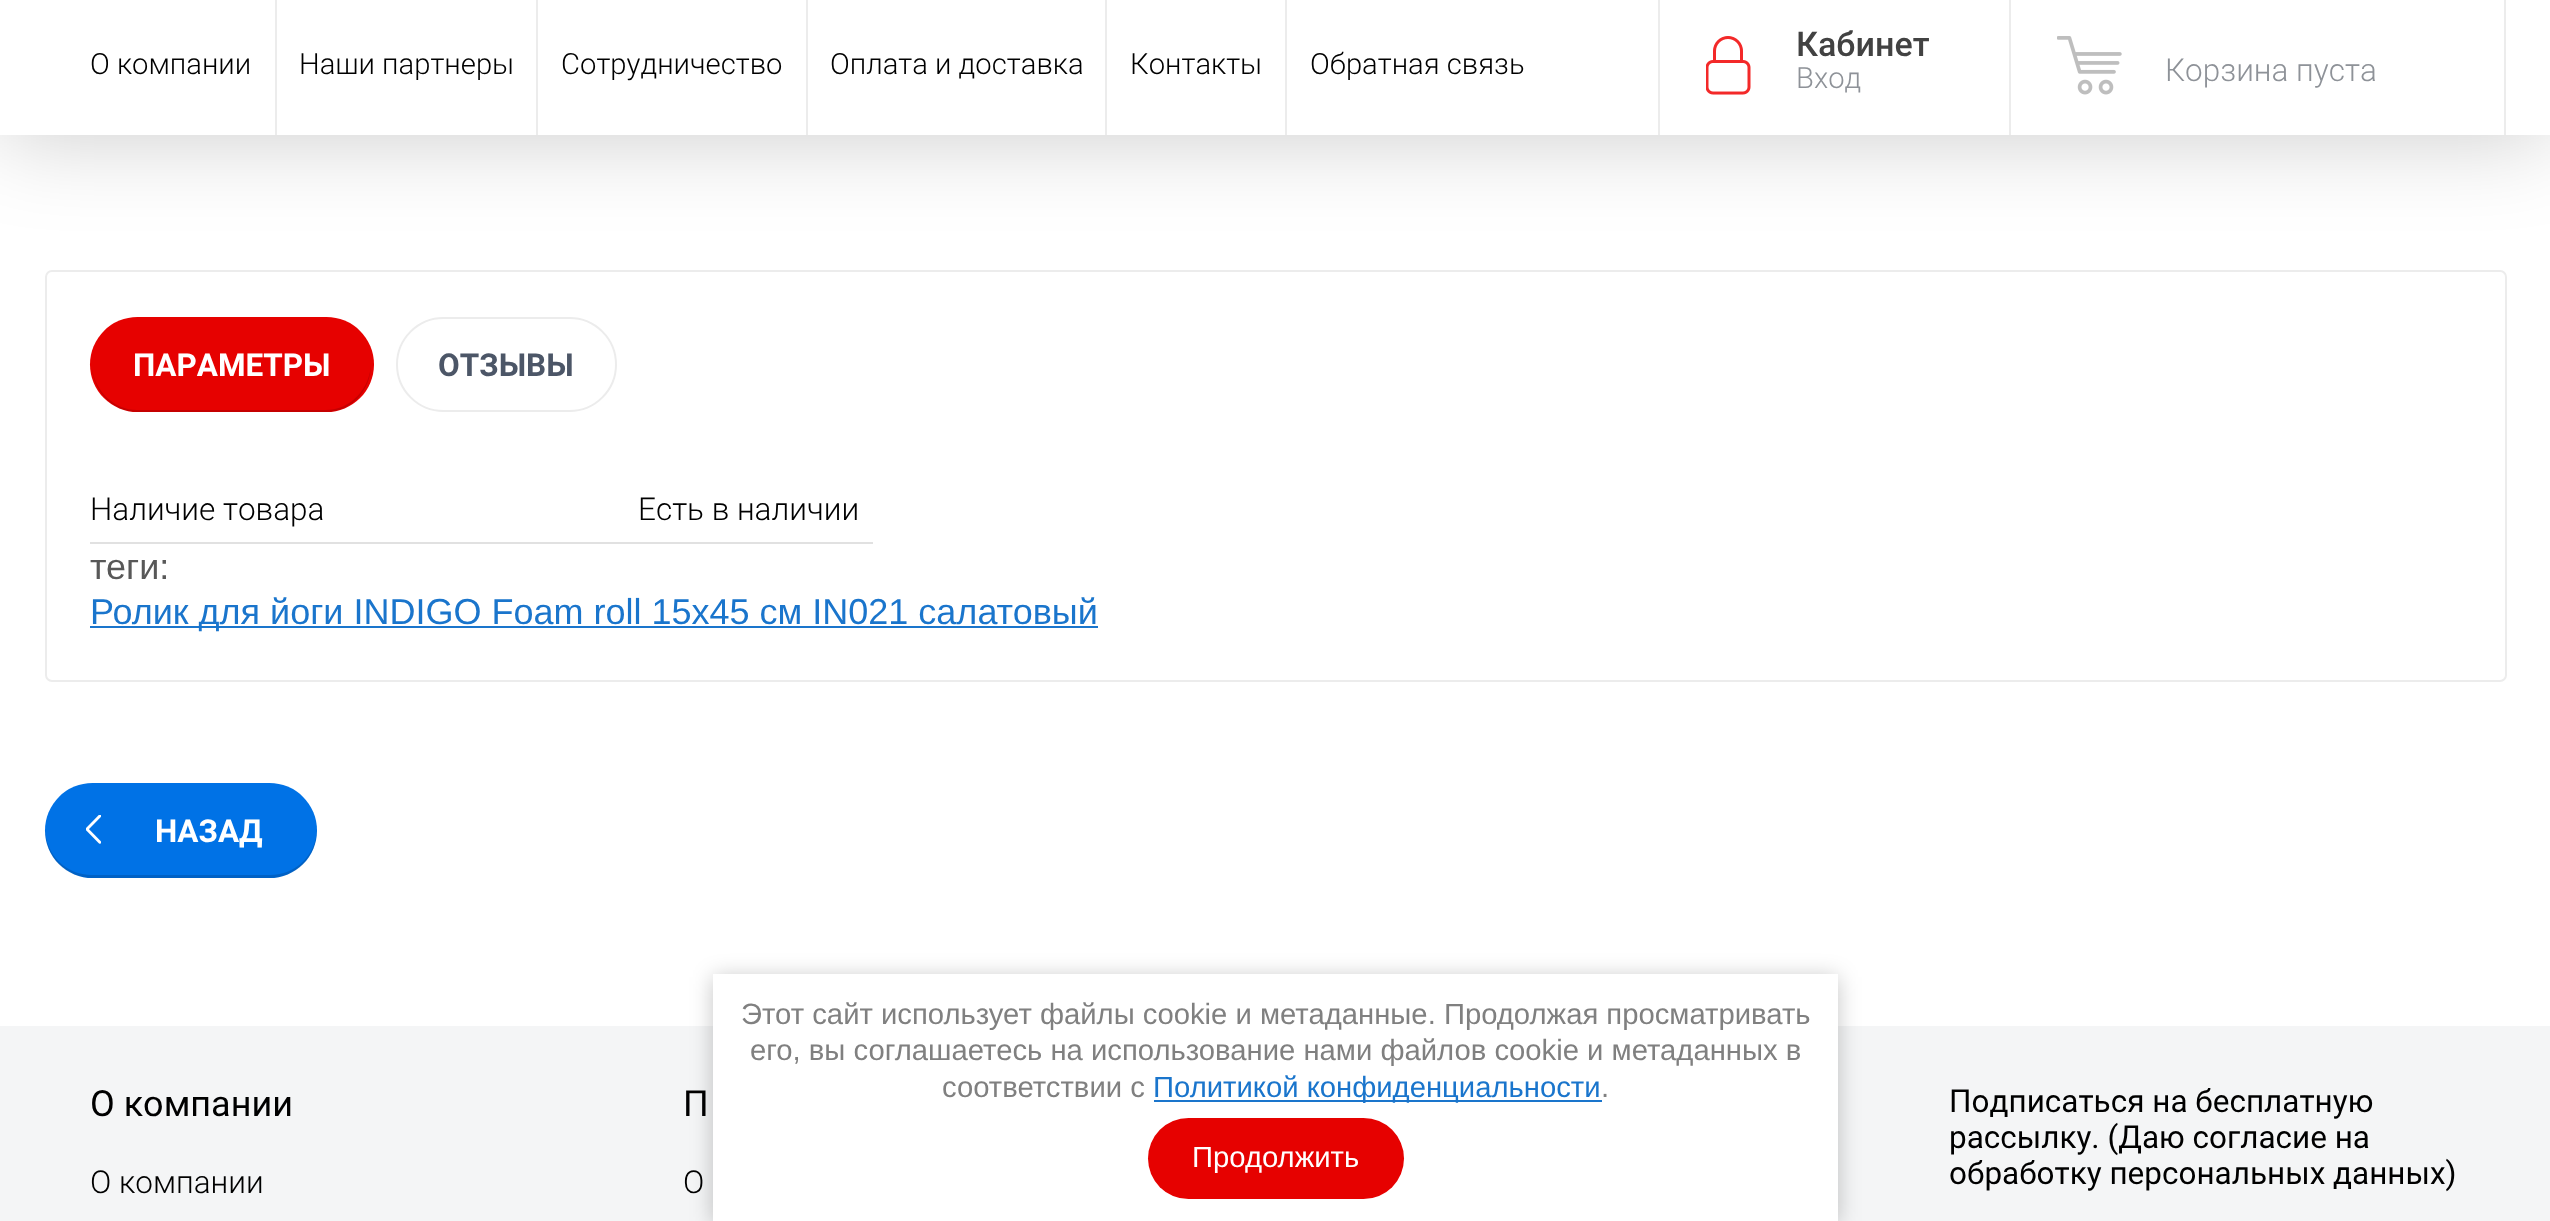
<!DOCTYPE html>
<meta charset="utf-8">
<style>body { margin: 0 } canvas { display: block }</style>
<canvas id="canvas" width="2550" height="1221"></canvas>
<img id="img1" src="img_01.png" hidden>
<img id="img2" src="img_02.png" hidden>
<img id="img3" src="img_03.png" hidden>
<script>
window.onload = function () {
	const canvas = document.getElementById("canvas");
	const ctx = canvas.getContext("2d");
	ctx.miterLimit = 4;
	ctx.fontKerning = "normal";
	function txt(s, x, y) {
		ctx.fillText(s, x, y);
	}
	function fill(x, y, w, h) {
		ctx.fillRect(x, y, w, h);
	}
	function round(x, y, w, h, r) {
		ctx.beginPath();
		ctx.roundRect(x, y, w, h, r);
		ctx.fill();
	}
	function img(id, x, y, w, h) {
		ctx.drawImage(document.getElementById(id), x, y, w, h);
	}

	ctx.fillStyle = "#FFFFFF";
	fill(0, 0, 2550, 1221);
	ctx.beginPath();
	ctx.roundRect(46, 271, 2460, 410, 6);
	ctx.strokeStyle = "#ECECEC";
	ctx.lineWidth = 2;
	ctx.stroke();
	ctx.fillStyle = "rgba(0, 0, 0, 0.2)";
	ctx.filter = "blur(45px)";
	ctx.beginPath();
	ctx.rect(0, 2, 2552, 135);
	ctx.fill();
	ctx.filter = "none";
	ctx.fillStyle = "#FFFFFF";
	fill(0, 0, 2550, 135);
	ctx.fillStyle = "#ECECEC";
	fill(275, 0, 2, 135);
	fill(536, 0, 2, 135);
	fill(806, 0, 2, 135);
	fill(1105, 0, 2, 135);
	fill(1285, 0, 2, 135);
	fill(1658, 0, 2, 135);
	fill(2009, 0, 2, 135);
	img("img1", 1706, 36, 45, 59);
	fill(2504, 0, 2, 135);
	img("img2", 2057, 36, 65, 59);
	ctx.fillStyle = "#E60100";
	round(90, 317, 284, 95, 47.5);
	ctx.fillStyle = "rgba(0, 0, 0, 0.14)";
	ctx.beginPath();
	ctx.moveTo(92, 368);
	ctx.bezierCurveTo(94, 393, 114, 412, 137, 412);
	ctx.lineTo(326, 412);
	ctx.bezierCurveTo(351, 412, 371, 391, 371, 364);
	ctx.lineTo(371, 359);
	ctx.lineTo(371, 362);
	ctx.bezierCurveTo(371, 388, 351, 410, 326, 410);
	ctx.lineTo(137, 410);
	ctx.bezierCurveTo(114, 410, 95, 391, 92, 368);
	ctx.closePath();
	ctx.fill();
	ctx.beginPath();
	ctx.roundRect(397, 318, 219, 93, 46.5);
	ctx.stroke();
	ctx.fillStyle = "#E1E1E1";
	fill(90, 542, 783, 2);
	ctx.fillStyle = "#1A75CC";
	fill(90, 626, 1008, 2);
	ctx.fillStyle = "#0072E6";
	round(45, 783, 272, 95, 47.5);
	ctx.fillStyle = "rgba(0, 0, 0, 0.14)";
	ctx.beginPath();
	ctx.moveTo(45, 829);
	ctx.lineTo(45, 830);
	ctx.bezierCurveTo(45, 857, 66, 878, 92, 878);
	ctx.lineTo(270, 878);
	ctx.bezierCurveTo(296, 878, 317, 857, 317, 830);
	ctx.lineTo(317, 829);
	ctx.bezierCurveTo(316, 855, 296, 875, 270, 875);
	ctx.lineTo(92, 875);
	ctx.bezierCurveTo(66, 875, 46, 855, 45, 829);
	ctx.closePath();
	ctx.fill();
	img("img3", 86, 815, 15, 29);
	ctx.fillStyle = "#F4F5F6";
	fill(0, 1026, 2550, 195);
	ctx.fillStyle = "rgba(0, 0, 0, 0.23)";
	ctx.filter = "blur(11px)";
	ctx.beginPath();
	ctx.rect(713, 977, 1125, 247);
	ctx.fill();
	ctx.filter = "none";
	ctx.fillStyle = "#FFFFFF";
	fill(713, 974, 1125, 247);
	ctx.fillStyle = "#1A75CC";
	fill(1154, 1100, 448, 2);
	ctx.fillStyle = "#E60100";
	round(1148, 1118, 256, 81, 40.5);
	ctx.font = "300 29.25px Roboto";
	ctx.fillStyle = "#000000";
	txt("О компании", 90, 74);
	txt("Наши партнеры", 299, 74);
	txt("Сотрудничество", 561, 74);
	txt("Оплата и доставка", 830, 74);
	txt("Контакты", 1130, 74);
	txt("Обратная связь", 1310, 74);
	ctx.font = "500 34px Roboto";
	ctx.fillStyle = "#424242";
	txt("Кабинет", 1796, 56);
	ctx.font = "300 29.25px Roboto";
	ctx.fillStyle = "#8E9298";
	txt("Вход", 1796, 88);
	ctx.font = "300 31.5px Roboto";
	txt("Корзина пуста", 2165, 81);
	ctx.font = "bold 31.5px Roboto";
	ctx.fillStyle = "#FFFFFF";
	txt("ПАРАМЕТРЫ", 133, 376);
	ctx.fillStyle = "#4C5667";
	txt("ОТЗЫВЫ", 438, 376);
	ctx.font = "300 31.5px Roboto";
	ctx.fillStyle = "#000000";
	txt("Наличие товара", 90, 520);
	txt("Есть в наличии", 638, 520);
	ctx.font = "36px Liberation Sans";
	ctx.fillStyle = "#585858";
	txt("теги:", 90, 579);
	ctx.fillStyle = "#1A75CC";
	txt("Ролик для йоги INDIGO Foam roll 15х45 см IN021 салатовый", 90, 624);
	ctx.font = "bold 31.5px Roboto";
	ctx.fillStyle = "#FFFFFF";
	txt("НАЗАД", 155, 842);
	ctx.font = "36px Roboto";
	ctx.fillStyle = "#000000";
	txt("О компании", 90, 1116);
	ctx.font = "300 31.5px Roboto";
	txt("О компании", 90, 1193);
	ctx.font = "36px Roboto";
	txt("П", 683, 1116);
	ctx.font = "300 31.5px Roboto";
	txt("О", 683, 1193);
	ctx.font = "31.5px Roboto";
	txt("Подписаться на бесплатную", 1949, 1112);
	txt("рассылку. (Даю согласие на", 1949, 1148);
	txt("обработку персональных данных)", 1949, 1184);
	ctx.font = "29.25px Liberation Sans";
	ctx.fillStyle = "#808080";
	txt("Этот сайт использует файлы cookie и метаданные. Продолжая просматривать", 741, 1024);
	txt("его, вы соглашаетесь на использование нами файлов cookie и метаданных в", 750, 1060);
	txt("соответствии с", 942, 1097);
	ctx.fillStyle = "#1A75CC";
	txt("Политикой конфиденциальности", 1153, 1097);
	ctx.fillStyle = "#808080";
	txt(".", 1601, 1097);
	ctx.fillStyle = "#FFFFFF";
	txt("Продолжить", 1192, 1167);
};
</script>
